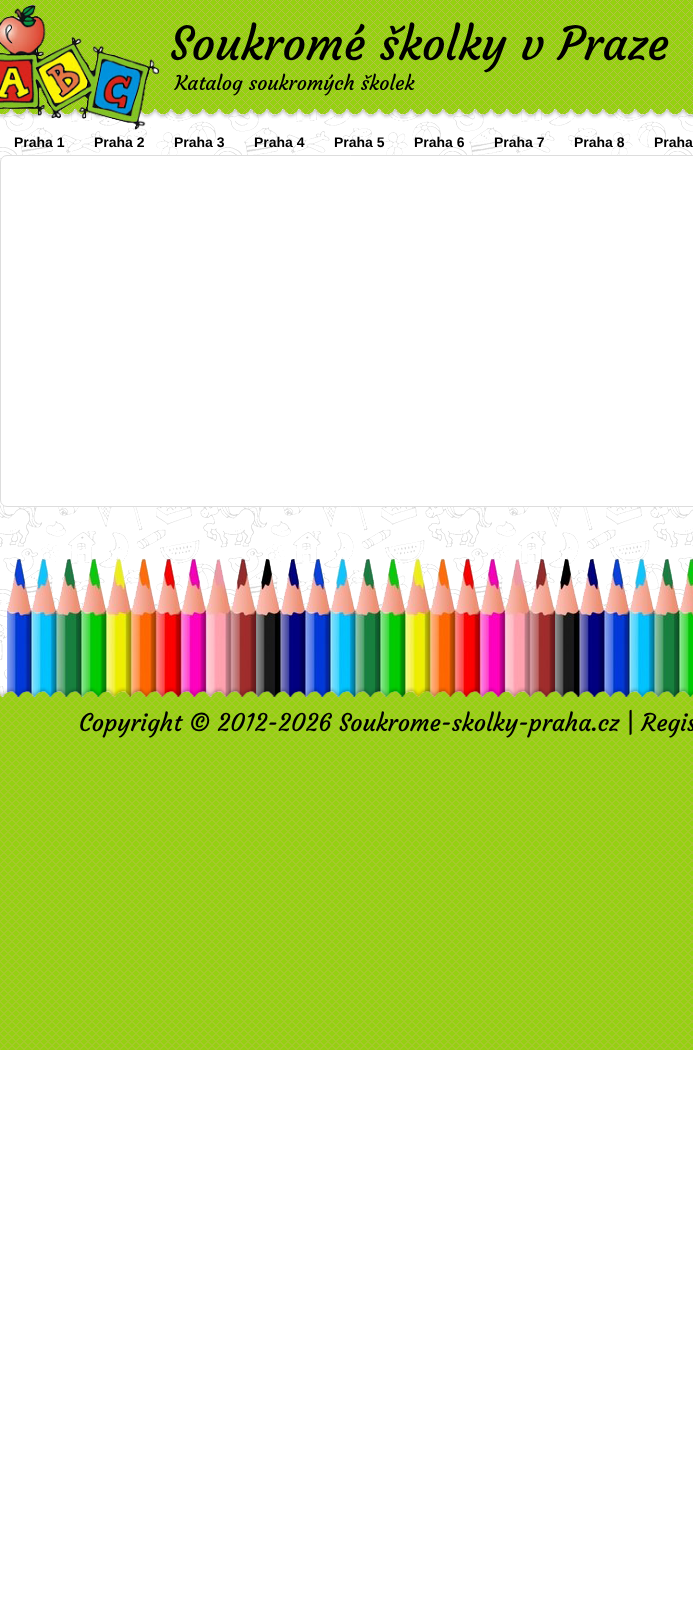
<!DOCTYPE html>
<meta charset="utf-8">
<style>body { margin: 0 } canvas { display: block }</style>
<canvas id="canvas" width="693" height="1624"></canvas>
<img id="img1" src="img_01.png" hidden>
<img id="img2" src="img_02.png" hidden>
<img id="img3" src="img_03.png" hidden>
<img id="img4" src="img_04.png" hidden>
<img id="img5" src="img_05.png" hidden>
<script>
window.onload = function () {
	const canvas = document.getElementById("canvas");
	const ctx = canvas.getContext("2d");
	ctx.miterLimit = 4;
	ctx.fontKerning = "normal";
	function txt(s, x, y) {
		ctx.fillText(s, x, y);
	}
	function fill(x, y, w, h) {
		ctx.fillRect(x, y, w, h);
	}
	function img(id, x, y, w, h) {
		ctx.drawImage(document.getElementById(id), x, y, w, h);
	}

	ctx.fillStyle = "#FFFFFF";
	fill(0, 0, 693, 1624);
	img("img1", 0, 109, 693, 588);
	img("img2", 0, 0, 693, 119);
	img("img3", 0, 5, 160, 125);
	ctx.beginPath();
	ctx.roundRect(0.5, 155.5, 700, 351, 6.5);
	ctx.fill();
	ctx.strokeStyle = "#DDDDDD";
	ctx.stroke();
	img("img4", 7, 558, 686, 139);
	img("img5", 0, 687, 693, 363);
	ctx.font = "46px Courgette";
	ctx.fillStyle = "#000000";
	txt("Soukromé školky v Praze", 170, 60);
	ctx.font = "20px Courgette";
	txt("Katalog soukromých školek", 175, 90);
	ctx.font = "bold 14px Liberation Sans";
	txt("Praha 1", 14, 147);
	txt("Praha 2", 94, 147);
	txt("Praha 3", 174, 147);
	txt("Praha 4", 254, 147);
	txt("Praha 5", 334, 147);
	txt("Praha 6", 414, 147);
	txt("Praha 7", 494, 147);
	txt("Praha 8", 574, 147);
	txt("Praha", 654, 147);
	ctx.font = "24px Courgette";
	txt("Copyright © 2012-2026 Soukrome-skolky-praha.cz | Regis", 79, 731);
};
</script>
